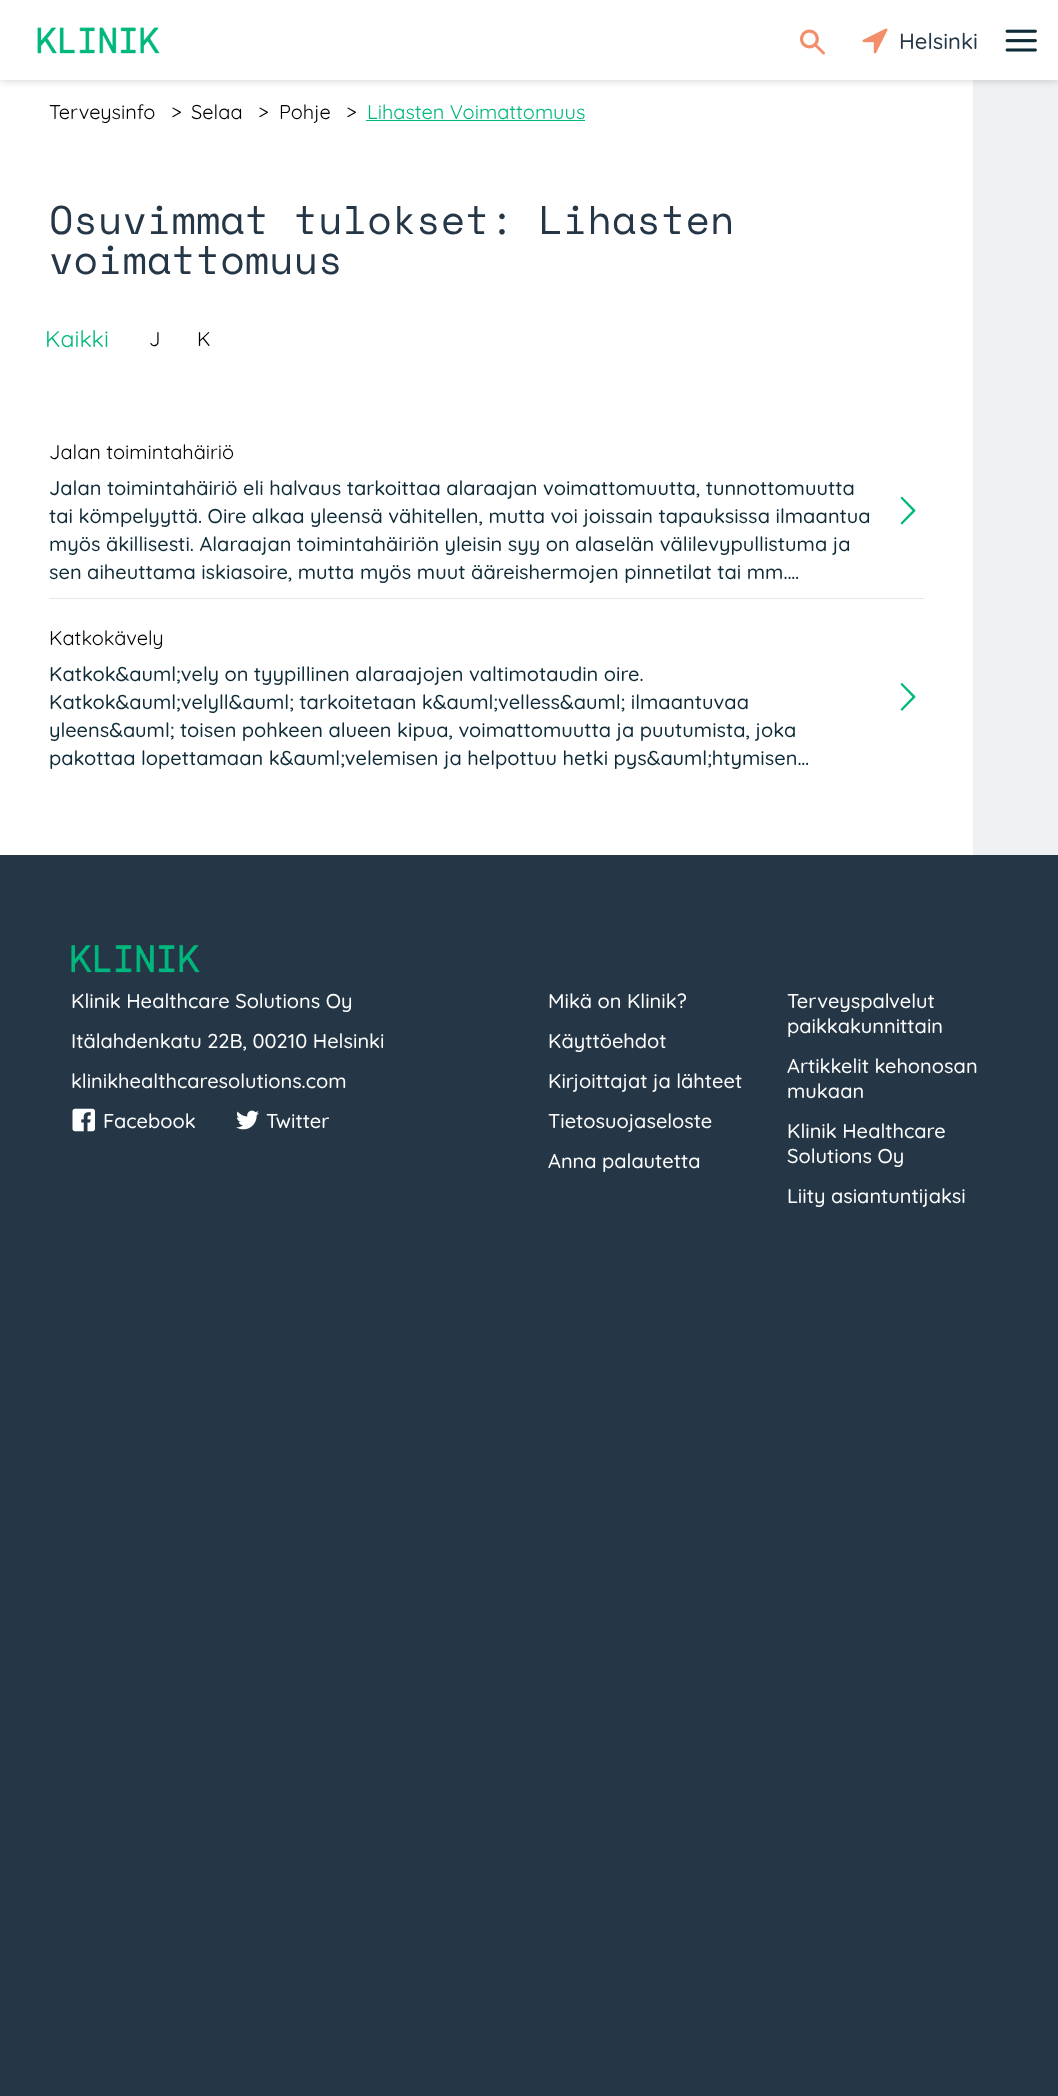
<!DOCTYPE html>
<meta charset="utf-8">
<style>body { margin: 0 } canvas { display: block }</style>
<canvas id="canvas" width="1058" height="2096"></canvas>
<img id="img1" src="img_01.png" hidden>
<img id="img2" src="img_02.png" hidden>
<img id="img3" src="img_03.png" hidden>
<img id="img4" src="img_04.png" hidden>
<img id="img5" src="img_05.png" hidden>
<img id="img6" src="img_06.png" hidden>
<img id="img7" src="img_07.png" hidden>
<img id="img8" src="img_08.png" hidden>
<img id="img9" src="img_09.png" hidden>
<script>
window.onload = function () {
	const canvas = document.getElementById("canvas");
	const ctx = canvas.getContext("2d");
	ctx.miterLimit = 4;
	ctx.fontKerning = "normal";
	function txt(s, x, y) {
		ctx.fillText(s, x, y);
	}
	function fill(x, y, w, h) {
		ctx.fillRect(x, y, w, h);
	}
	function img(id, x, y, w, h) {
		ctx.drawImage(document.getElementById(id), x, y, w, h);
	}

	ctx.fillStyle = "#253746";
	fill(0, 0, 1058, 2096);
	ctx.fillStyle = "#EFF1F2";
	fill(973, 80, 85, 775);
	ctx.fillStyle = "#FFFFFF";
	fill(0, 80, 973, 775);
	ctx.fillStyle = "rgba(0, 0, 0, 0.2)";
	ctx.filter = "blur(4px)";
	ctx.beginPath();
	ctx.rect(0, 0, 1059, 80);
	ctx.fill();
	ctx.filter = "none";
	ctx.fillStyle = "#FFFFFF";
	fill(0, 0, 1058, 80);
	img("img1", 37, 27, 123, 27);
	img("img2", 800, 29, 25, 26);
	img("img3", 862, 28, 26, 26);
	img("img4", 1005, 29, 32, 23);
	ctx.fillStyle = "#00B77D";
	fill(366, 120, 219, 1);
	img("img5", 900, 496, 16, 29);
	ctx.fillStyle = "#E6E6E6";
	ctx.beginPath();
	ctx.moveTo(49, 598);
	ctx.lineTo(49, 599);
	ctx.lineTo(924, 599);
	ctx.lineTo(924, 785);
	ctx.lineTo(924, 598);
	ctx.closePath();
	ctx.fill();
	img("img6", 900, 683, 16, 28);
	img("img7", 71, 945, 129, 28);
	img("img8", 72, 1108, 23, 24);
	img("img9", 236, 1110, 23, 20);
	ctx.font = "500 22px Quicksand";
	ctx.fillStyle = "#253746";
	txt("Helsinki", 899, 49);
	ctx.font = "20px Quicksand";
	ctx.fillStyle = "#000000";
	txt("Terveysinfo", 49, 119);
	txt(">", 171, 119);
	txt("Selaa", 191, 119);
	txt(">", 258, 119);
	txt("Pohje", 279, 119);
	txt(">", 346, 119);
	ctx.fillStyle = "#00B77D";
	txt("Lihasten Voimattomuus", 367, 119);
	ctx.font = "40px Space Mono";
	ctx.fillStyle = "#253746";
	txt("Osuvimmat tulokset: Lihasten", 49, 234);
	txt("voimattomuus", 49, 274);
	ctx.font = "23px Quicksand";
	ctx.fillStyle = "#00B77D";
	txt("Kaikki", 45, 347);
	ctx.font = "20px Quicksand";
	ctx.fillStyle = "#000000";
	txt("J", 149, 346);
	txt("K", 197, 346);
	txt("Jalan toimintahäiriö", 49, 459);
	ctx.font = "500 20px Quicksand";
	ctx.fillStyle = "#0F2B37";
	txt("Jalan toimintahäiriö eli halvaus tarkoittaa alaraajan voimattomuutta, tunnottomuutta", 49, 495);
	txt("tai kömpelyyttä. Oire alkaa yleensä vähitellen, mutta voi joissain tapauksissa ilmaantua", 49, 523);
	txt("myös äkillisesti. Alaraajan toimintahäiriön yleisin syy on alaselän välilevypullistuma ja", 49, 551);
	txt("sen aiheuttama iskiasoire, mutta myös muut ääreishermojen pinnetilat tai mm.…", 49, 579);
	ctx.font = "20px Quicksand";
	ctx.fillStyle = "#000000";
	txt("Katkokävely", 49, 645);
	ctx.font = "500 20px Quicksand";
	ctx.fillStyle = "#0F2B37";
	txt("Katkok&auml;vely on tyypillinen alaraajojen valtimotaudin oire.", 49, 681);
	txt("Katkok&auml;velyll&auml; tarkoitetaan k&auml;velless&auml; ilmaantuvaa", 49, 709);
	txt("yleens&auml; toisen pohkeen alueen kipua, voimattomuutta ja puutumista, joka", 49, 737);
	txt("pakottaa lopettamaan k&auml;velemisen ja helpottuu hetki pys&auml;htymisen…", 49, 765);
	ctx.fillStyle = "#FFFFFF";
	txt("Klinik Healthcare Solutions Oy", 71, 1008);
	txt("Itälahdenkatu 22B, 00210 Helsinki", 71, 1048);
	txt("klinikhealthcaresolutions.com", 71, 1088);
	txt("Facebook", 103, 1128);
	txt("Twitter", 266, 1128);
	txt("Mikä on Klinik?", 548, 1008);
	txt("Käyttöehdot", 548, 1048);
	txt("Kirjoittajat ja lähteet", 548, 1088);
	txt("Tietosuojaseloste", 548, 1128);
	txt("Anna palautetta", 548, 1168);
	txt("Terveyspalvelut", 787, 1008);
	txt("paikkakunnittain", 787, 1033);
	txt("Artikkelit kehonosan", 787, 1073);
	txt("mukaan", 787, 1098);
	txt("Klinik Healthcare", 787, 1138);
	txt("Solutions Oy", 787, 1163);
	txt("Liity asiantuntijaksi", 787, 1203);
};
</script>
